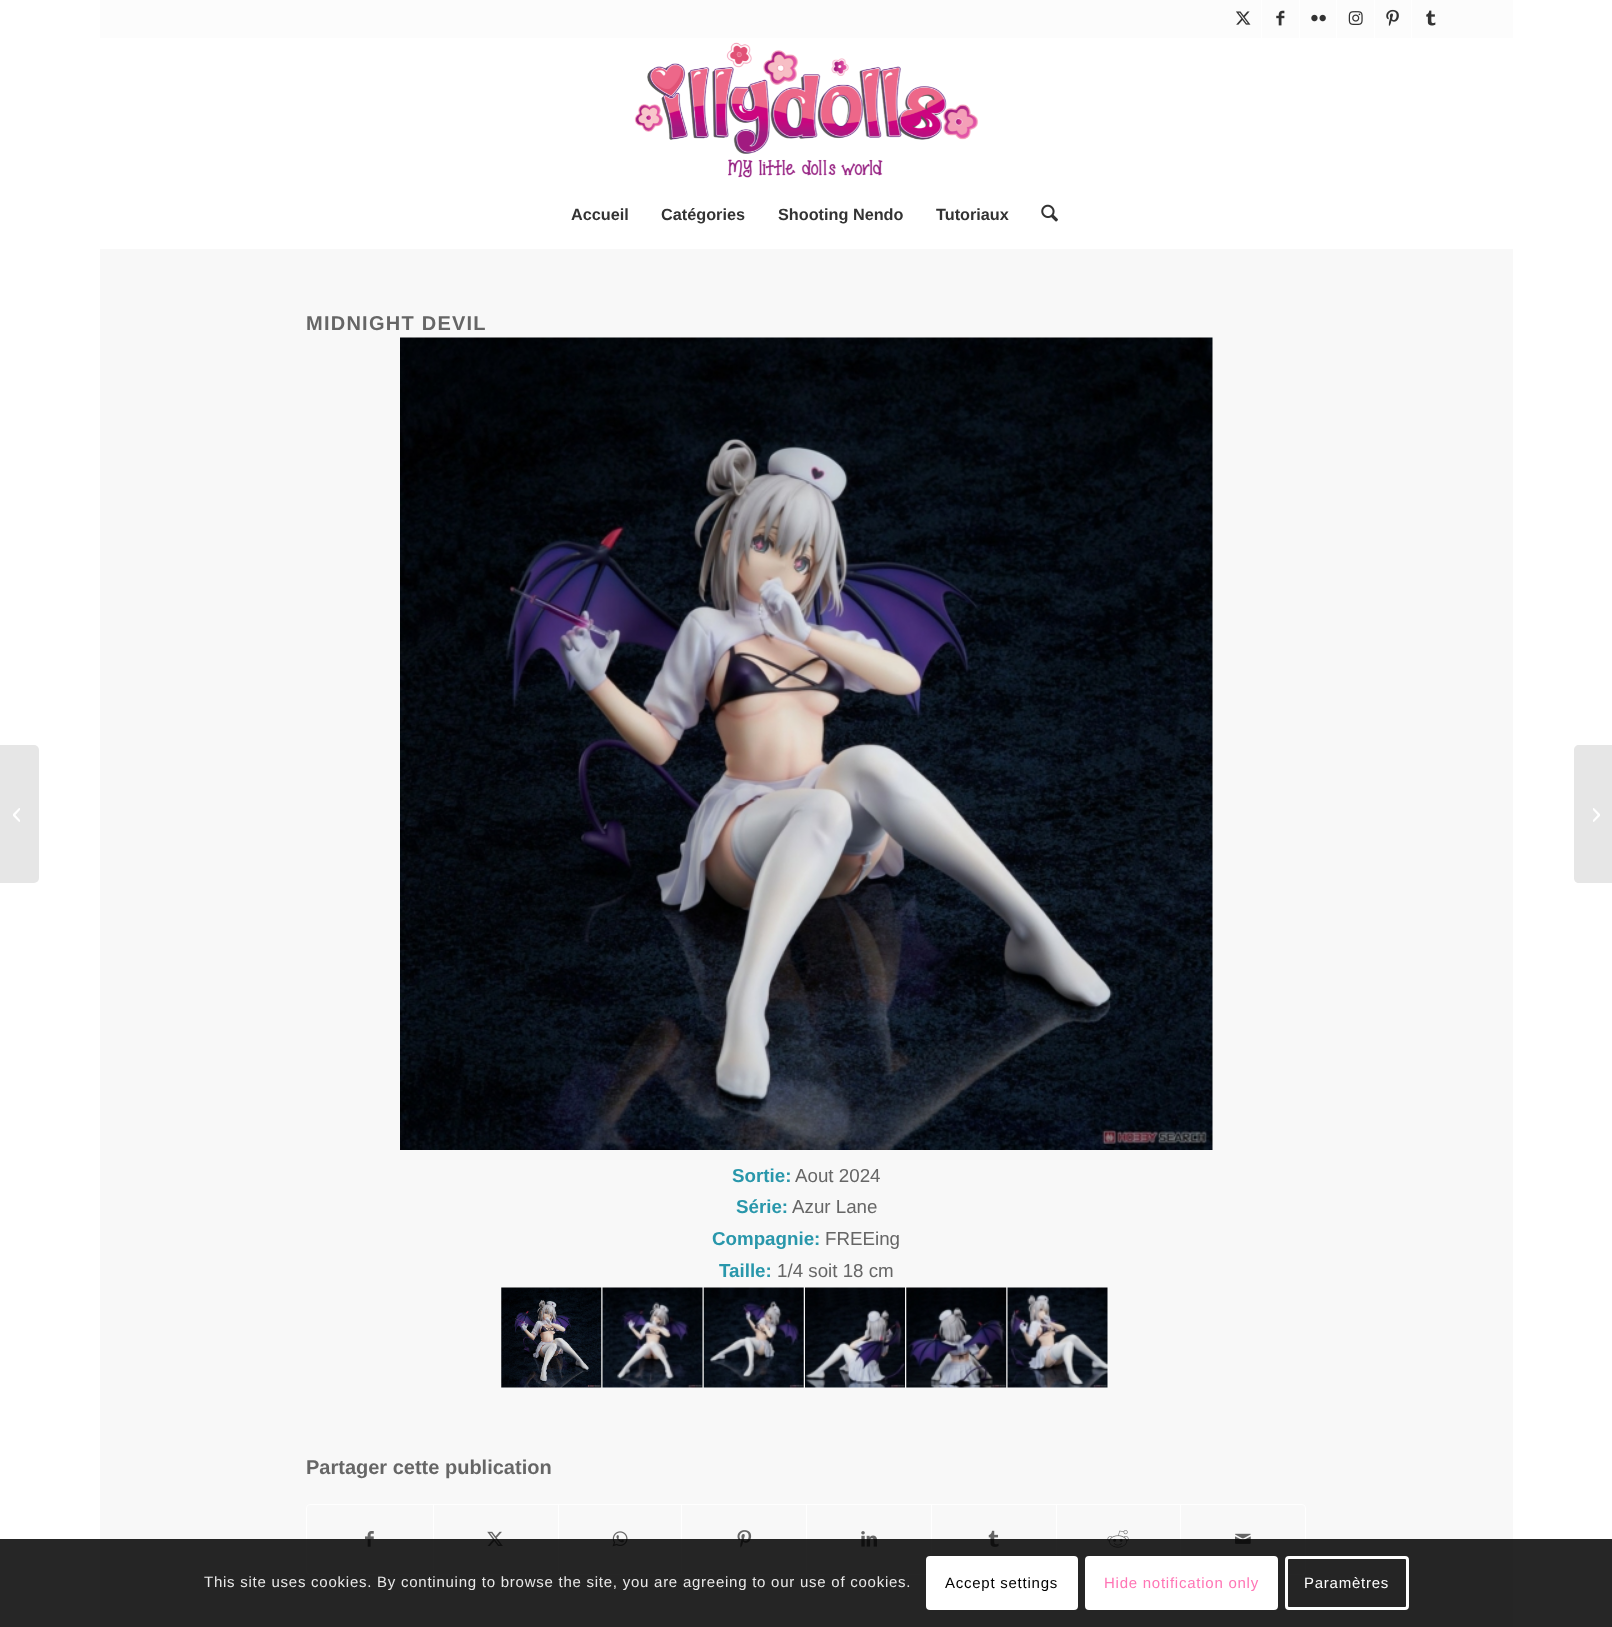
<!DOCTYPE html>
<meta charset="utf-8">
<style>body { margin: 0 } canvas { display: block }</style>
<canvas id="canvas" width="1612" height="1627"></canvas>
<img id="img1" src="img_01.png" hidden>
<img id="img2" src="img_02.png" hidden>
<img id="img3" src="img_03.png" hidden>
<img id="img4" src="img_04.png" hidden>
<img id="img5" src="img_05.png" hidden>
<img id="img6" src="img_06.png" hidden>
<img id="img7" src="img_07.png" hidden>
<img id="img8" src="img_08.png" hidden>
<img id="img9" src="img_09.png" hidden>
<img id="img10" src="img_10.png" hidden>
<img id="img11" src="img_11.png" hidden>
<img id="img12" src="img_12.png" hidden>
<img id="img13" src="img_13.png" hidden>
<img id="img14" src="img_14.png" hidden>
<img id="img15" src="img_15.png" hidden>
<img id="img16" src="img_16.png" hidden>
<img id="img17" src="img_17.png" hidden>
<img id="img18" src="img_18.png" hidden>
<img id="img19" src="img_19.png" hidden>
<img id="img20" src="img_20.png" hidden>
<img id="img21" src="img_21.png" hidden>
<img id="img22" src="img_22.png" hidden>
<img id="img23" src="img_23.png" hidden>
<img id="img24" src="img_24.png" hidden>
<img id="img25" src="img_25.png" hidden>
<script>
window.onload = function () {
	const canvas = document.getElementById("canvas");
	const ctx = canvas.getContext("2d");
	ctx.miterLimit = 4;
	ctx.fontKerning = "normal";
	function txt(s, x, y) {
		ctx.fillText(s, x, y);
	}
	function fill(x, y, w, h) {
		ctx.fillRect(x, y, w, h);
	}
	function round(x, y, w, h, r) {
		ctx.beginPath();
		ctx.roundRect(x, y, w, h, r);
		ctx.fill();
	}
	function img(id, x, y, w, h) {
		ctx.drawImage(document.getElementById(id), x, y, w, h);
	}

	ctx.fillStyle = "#FFFFFF";
	fill(0, 0, 1612, 1627);
	ctx.fillStyle = "#FCFCFC";
	fill(100, 0, 1413, 38);
	ctx.fillStyle = "#FFFFFF";
	fill(1261, 0, 1, 38);
	img("img1", 1236, 11, 15, 14);
	fill(1299, 0, 1, 38);
	img("img2", 1276, 10, 9, 16);
	fill(1336, 0, 1, 38);
	img("img3", 1311, 14, 15, 8);
	fill(1374, 0, 1, 38);
	img("img4", 1348, 11, 15, 14);
	fill(1411, 0, 1, 38);
	img("img5", 1386, 9, 13, 17);
	img("img6", 1426, 10, 10, 16);
	img("img7", 634, 42, 345, 136);
	img("img8", 1041, 204, 17, 18);
	ctx.fillStyle = "#E6E6E6";
	ctx.beginPath();
	ctx.roundRect(0, 745, 39, 138, [0, 5, 5, 0]);
	ctx.fill();
	img("img9", 13, 808, 7, 14);
	ctx.fillStyle = "#F8F8F8";
	fill(100, 249, 1413, 1378);
	img("img10", 400, 337, 813, 813);
	img("img11", 501, 1287, 101, 101);
	img("img12", 602, 1287, 101, 101);
	img("img13", 703, 1287, 101, 101);
	img("img14", 805, 1287, 100, 101);
	img("img15", 906, 1287, 101, 101);
	img("img16", 1007, 1287, 101, 101);
	ctx.beginPath();
	ctx.roundRect(306.5, 1504.5, 999, 70, 3.5);
	ctx.strokeStyle = "#FFFFFF";
	ctx.stroke();
	img("img17", 365, 1531, 9, 16);
	ctx.fillStyle = "#FFFFFF";
	fill(433, 1505, 1, 69);
	img("img18", 487, 1531, 16, 15);
	fill(558, 1505, 1, 69);
	img("img19", 612, 1531, 16, 16);
	fill(681, 1505, 1, 69);
	img("img20", 737, 1530, 15, 18);
	fill(806, 1505, 1, 69);
	img("img21", 861, 1531, 16, 16);
	fill(931, 1505, 1, 51);
	img("img22", 988, 1530, 11, 17);
	fill(1056, 1505, 1, 51);
	img("img23", 1107, 1530, 22, 18);
	fill(1180, 1505, 1, 51);
	img("img24", 1235, 1533, 16, 11);
	ctx.fillStyle = "#E6E6E6";
	ctx.beginPath();
	ctx.moveTo(1579, 745);
	ctx.lineTo(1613, 745);
	ctx.lineTo(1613, 883);
	ctx.lineTo(1579, 883);
	ctx.bezierCurveTo(1576, 883, 1574, 881, 1574, 878);
	ctx.lineTo(1574, 750);
	ctx.bezierCurveTo(1574, 747, 1576, 745, 1579, 745);
	ctx.closePath();
	ctx.fill();
	img("img25", 1593, 808, 7, 14);
	ctx.fillStyle = "rgba(0, 0, 0, 0.85)";
	fill(0, 1539, 1612, 88);
	ctx.fillStyle = "#FFFFFF";
	round(926, 1556, 152, 54, 4);
	ctx.beginPath();
	ctx.roundRect(1086.5, 1557.5, 190, 51, 2.5);
	ctx.fill();
	ctx.lineWidth = 3;
	ctx.stroke();
	ctx.beginPath();
	ctx.roundRect(1286.5, 1557.5, 121, 51, 2.5);
	ctx.stroke();
	ctx.font = "bold 16.25px Liberation Sans";
	ctx.fillStyle = "#333333";
	txt("Accueil", 571, 220);
	txt("Catégories", 661, 220);
	txt("Shooting Nendo", 778, 220);
	txt("Tutoriaux", 936, 220);
	ctx.letterSpacing = "1.25px";
	ctx.font = "bold 20px Liberation Sans";
	ctx.fillStyle = "#666666";
	txt("MIDNIGHT DEVIL", 306, 330);
	ctx.letterSpacing = "0px";
	ctx.font = "bold 18.75px Liberation Sans";
	ctx.fillStyle = "#2997AB";
	txt("Sortie:", 732, 1182);
	ctx.font = "18.75px Liberation Sans";
	ctx.fillStyle = "#666666";
	txt("Aout 2024", 795, 1182);
	ctx.font = "bold 18.75px Liberation Sans";
	ctx.fillStyle = "#2997AB";
	txt("Série:", 736, 1213);
	ctx.font = "18.75px Liberation Sans";
	ctx.fillStyle = "#666666";
	txt("Azur Lane", 792, 1213);
	ctx.font = "bold 18.75px Liberation Sans";
	ctx.fillStyle = "#2997AB";
	txt("Compagnie:", 712, 1245);
	ctx.font = "18.75px Liberation Sans";
	ctx.fillStyle = "#666666";
	txt("FREEing", 825, 1245);
	ctx.font = "bold 18.75px Liberation Sans";
	ctx.fillStyle = "#2997AB";
	txt("Taille:", 719, 1277);
	ctx.font = "18.75px Liberation Sans";
	ctx.fillStyle = "#666666";
	txt("1/4 soit 18 cm", 777, 1277);
	ctx.font = "bold 20px Liberation Sans";
	txt("Partager cette publication", 306, 1474);
	ctx.letterSpacing = "0.75px";
	ctx.font = "15px Liberation Sans";
	ctx.fillStyle = "#E9E9E9";
	txt("This site uses cookies. By continuing to browse the site, you are agreeing to our use of cookies.", 204, 1587);
	ctx.fillStyle = "#000000";
	txt("Accept settings", 945, 1588);
	ctx.fillStyle = "#FF75B5";
	txt("Hide notification only", 1104, 1588);
	ctx.fillStyle = "#FFFFFF";
	txt("Paramètres", 1304, 1588);
};
</script>
